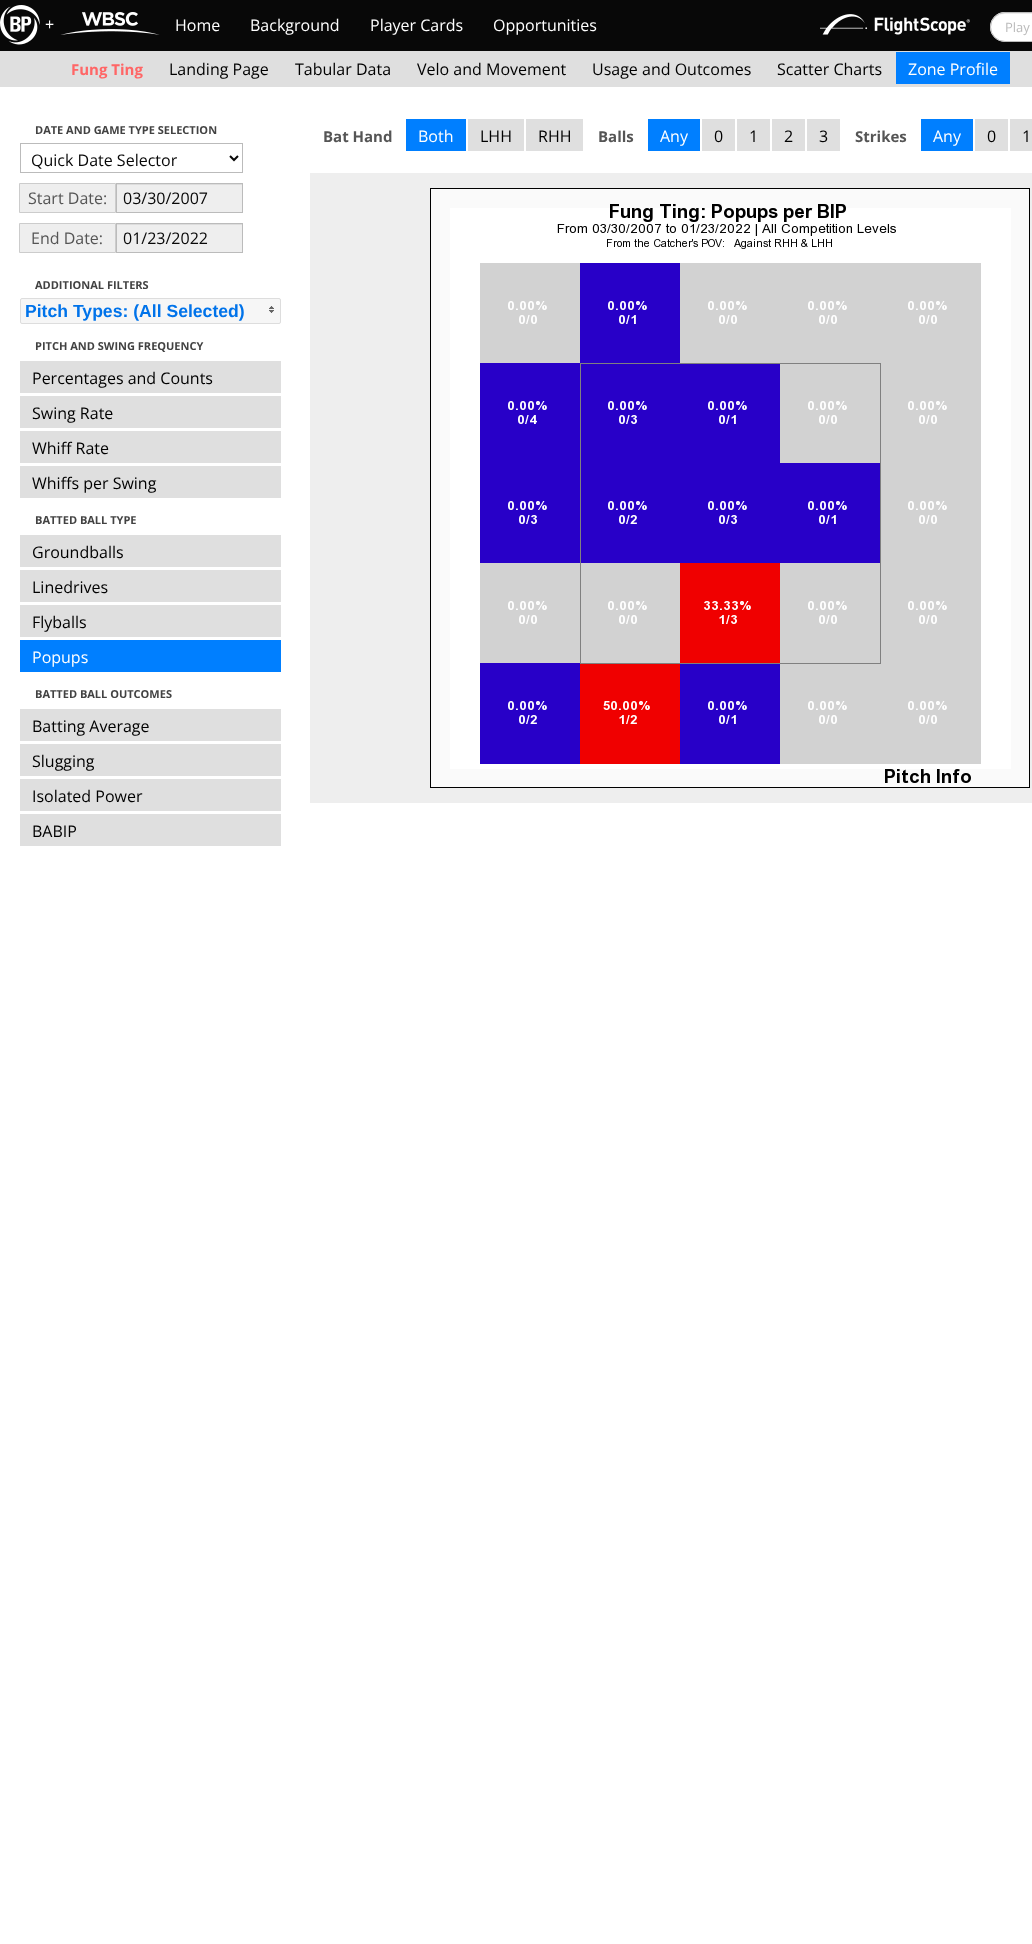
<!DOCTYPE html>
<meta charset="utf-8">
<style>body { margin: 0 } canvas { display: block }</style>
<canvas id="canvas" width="1032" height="1944"></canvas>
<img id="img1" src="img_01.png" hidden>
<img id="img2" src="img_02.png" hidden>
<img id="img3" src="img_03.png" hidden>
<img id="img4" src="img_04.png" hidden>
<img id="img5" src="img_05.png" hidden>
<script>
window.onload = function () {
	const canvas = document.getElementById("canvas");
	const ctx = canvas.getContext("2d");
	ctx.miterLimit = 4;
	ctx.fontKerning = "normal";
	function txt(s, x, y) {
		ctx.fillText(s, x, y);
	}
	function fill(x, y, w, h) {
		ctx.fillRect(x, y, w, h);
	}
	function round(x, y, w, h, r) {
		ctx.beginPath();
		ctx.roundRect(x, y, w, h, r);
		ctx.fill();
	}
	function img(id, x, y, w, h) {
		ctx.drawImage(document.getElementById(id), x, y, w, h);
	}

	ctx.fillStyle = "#FFFFFF";
	fill(0, 0, 1032, 1944);
	ctx.fillStyle = "#080808";
	fill(0, 0, 1032, 51);
	img("img1", 0, 5, 40, 40);
	img("img2", 60, 12, 100, 23);
	img("img3", 820, 14, 150, 21);
	ctx.fillStyle = "#FFFFFF";
	round(990, 12, 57, 30, 15);
	ctx.fillStyle = "#ECECEC";
	ctx.beginPath();
	ctx.moveTo(1005, 14);
	ctx.lineTo(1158, 14);
	ctx.bezierCurveTo(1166, 16, 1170, 23, 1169, 30);
	ctx.bezierCurveTo(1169, 27, 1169, 24, 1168, 22);
	ctx.bezierCurveTo(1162, 8, 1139, 13, 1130, 13);
	ctx.lineTo(1030, 13);
	ctx.bezierCurveTo(1020, 13, 989, 7, 991, 28);
	ctx.bezierCurveTo(991, 21, 996, 14, 1005, 14);
	ctx.closePath();
	ctx.fill();
	ctx.beginPath();
	ctx.roundRect(990.5, 12.5, 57, 29, 14.5);
	ctx.strokeStyle = "#BBBBBB";
	ctx.stroke();
	ctx.fillStyle = "#DFDFDF";
	fill(0, 51, 1032, 36);
	ctx.fillStyle = "#007FFF";
	fill(896, 52, 114, 32);
	ctx.strokeRect(20.5, 143.5, 222, 29);
	ctx.beginPath();
	ctx.moveTo(230, 156);
	ctx.lineTo(234, 160);
	ctx.lineTo(238, 156);
	ctx.strokeStyle = "#080808";
	ctx.lineWidth = 2;
	ctx.stroke();
	ctx.fillStyle = "#EEEEEE";
	ctx.beginPath();
	ctx.rect(19.5, 183.5, 96, 29);
	ctx.fill();
	ctx.strokeStyle = "#CCCCCC";
	ctx.lineWidth = 1;
	ctx.stroke();
	fill(117, 185, 125, 27);
	ctx.fillStyle = "#DCDCDC";
	fill(117, 184, 125, 1);
	ctx.strokeStyle = "#BBBBBB";
	ctx.strokeRect(116.5, 183.5, 126, 29);
	ctx.fillStyle = "#EEEEEE";
	ctx.beginPath();
	ctx.rect(19.5, 223.5, 96, 29);
	ctx.fill();
	ctx.strokeStyle = "#CCCCCC";
	ctx.stroke();
	fill(117, 225, 125, 27);
	ctx.fillStyle = "#DCDCDC";
	fill(117, 224, 125, 1);
	ctx.strokeStyle = "#BBBBBB";
	ctx.strokeRect(116.5, 223.5, 126, 29);
	ctx.fillStyle = "#F6F6F6";
	ctx.beginPath();
	ctx.roundRect(20.5, 298.5, 260, 25, 1.5);
	ctx.fill();
	ctx.strokeStyle = "#DDDDDD";
	ctx.stroke();
	img("img4", 269, 306, 5, 7);
	ctx.fillStyle = "#DFDFDF";
	fill(20, 361, 261, 32);
	fill(20, 396, 261, 32);
	fill(20, 431, 261, 32);
	fill(20, 466, 261, 32);
	fill(20, 535, 261, 32);
	fill(20, 570, 261, 32);
	fill(20, 605, 261, 32);
	ctx.fillStyle = "#007FFF";
	fill(20, 640, 261, 32);
	ctx.fillStyle = "#DFDFDF";
	fill(20, 709, 261, 32);
	fill(20, 744, 261, 32);
	fill(20, 779, 261, 32);
	fill(20, 814, 261, 32);
	ctx.fillStyle = "#007FFF";
	fill(406, 119, 60, 32);
	ctx.fillStyle = "#DFDFDF";
	fill(468, 119, 56, 32);
	fill(526, 119, 57, 32);
	ctx.fillStyle = "#007FFF";
	fill(648, 119, 52, 32);
	ctx.fillStyle = "#DFDFDF";
	fill(702, 119, 33, 32);
	fill(737, 119, 33, 32);
	fill(772, 119, 33, 32);
	fill(807, 119, 33, 32);
	ctx.fillStyle = "#007FFF";
	fill(921, 119, 52, 32);
	ctx.fillStyle = "#DFDFDF";
	fill(975, 119, 33, 32);
	fill(1010, 119, 22, 32);
	ctx.fillStyle = "#EEEEEE";
	fill(310, 173, 722, 630);
	img("img5", 430, 188, 600, 600);
	ctx.font = "16px Open Sans";
	ctx.fillStyle = "#FFFFFF";
	txt("+", 45, 30);
	txt("Home", 175, 31);
	txt("Background", 250, 31);
	txt("Player Cards", 370, 31);
	txt("Opportunities", 493, 31);
	ctx.font = "13px Open Sans";
	ctx.fillStyle = "#BBBBBB";
	txt("Play", 1005, 32);
	ctx.font = "bold 15px Open Sans";
	ctx.fillStyle = "#FF6666";
	txt("Fung Ting", 71, 75);
	ctx.font = "16px Open Sans";
	ctx.fillStyle = "#000000";
	txt("Landing Page", 169, 75);
	txt("Tabular Data", 295, 75);
	txt("Velo and Movement", 417, 75);
	txt("Usage and Outcomes", 592, 75);
	txt("Scatter Charts", 777, 75);
	ctx.fillStyle = "#FFFFFF";
	txt("Zone Profile", 908, 75);
	ctx.font = "bold 11px Open Sans";
	ctx.fillStyle = "#424242";
	txt("DATE AND GAME TYPE SELECTION", 35, 134);
	ctx.font = "16px Open Sans";
	ctx.fillStyle = "#080808";
	txt("Quick Date Selector", 31, 166);
	ctx.fillStyle = "#555555";
	txt("Start Date:", 28, 204);
	ctx.fillStyle = "#080808";
	txt("03/30/2007", 123, 204);
	ctx.fillStyle = "#555555";
	txt("End Date:", 31, 244);
	ctx.fillStyle = "#080808";
	txt("01/23/2022", 123, 244);
	ctx.font = "bold 11px Open Sans";
	ctx.fillStyle = "#424242";
	txt("ADDITIONAL FILTERS", 35, 289);
	ctx.font = "bold 17.6px Liberation Sans";
	ctx.fillStyle = "#0073EA";
	txt("Pitch Types: (All Selected)", 25, 317);
	ctx.font = "bold 11px Open Sans";
	ctx.fillStyle = "#424242";
	txt("PITCH AND SWING FREQUENCY", 35, 350);
	ctx.font = "16px Open Sans";
	ctx.fillStyle = "#000000";
	txt("Percentages and Counts", 32, 384);
	txt("Swing Rate", 32, 419);
	txt("Whiff Rate", 32, 454);
	txt("Whiffs per Swing", 32, 489);
	ctx.font = "bold 11px Open Sans";
	ctx.fillStyle = "#424242";
	txt("BATTED BALL TYPE", 35, 524);
	ctx.font = "16px Open Sans";
	ctx.fillStyle = "#000000";
	txt("Groundballs", 32, 558);
	txt("Linedrives", 32, 593);
	txt("Flyballs", 32, 628);
	ctx.fillStyle = "#FFFFFF";
	txt("Popups", 32, 663);
	ctx.font = "bold 11px Open Sans";
	ctx.fillStyle = "#424242";
	txt("BATTED BALL OUTCOMES", 35, 698);
	ctx.font = "16px Open Sans";
	ctx.fillStyle = "#000000";
	txt("Batting Average", 32, 732);
	txt("Slugging", 32, 767);
	txt("Isolated Power", 32, 802);
	txt("BABIP", 32, 837);
	ctx.font = "bold 15px Open Sans";
	ctx.fillStyle = "#555555";
	txt("Bat Hand", 323, 142);
	ctx.font = "16px Open Sans";
	ctx.fillStyle = "#FFFFFF";
	txt("Both", 418, 142);
	ctx.fillStyle = "#000000";
	txt("LHH", 480, 142);
	txt("RHH", 538, 142);
	ctx.font = "bold 15px Open Sans";
	ctx.fillStyle = "#555555";
	txt("Balls", 598, 142);
	ctx.font = "16px Open Sans";
	ctx.fillStyle = "#FFFFFF";
	txt("Any", 660, 142);
	ctx.fillStyle = "#000000";
	txt("0", 714, 142);
	txt("1", 749, 142);
	txt("2", 784, 142);
	txt("3", 819, 142);
	ctx.font = "bold 15px Open Sans";
	ctx.fillStyle = "#555555";
	txt("Strikes", 855, 142);
	ctx.font = "16px Open Sans";
	ctx.fillStyle = "#FFFFFF";
	txt("Any", 933, 142);
	ctx.fillStyle = "#000000";
	txt("0", 987, 142);
	txt("1", 1022, 142);
};
</script>
